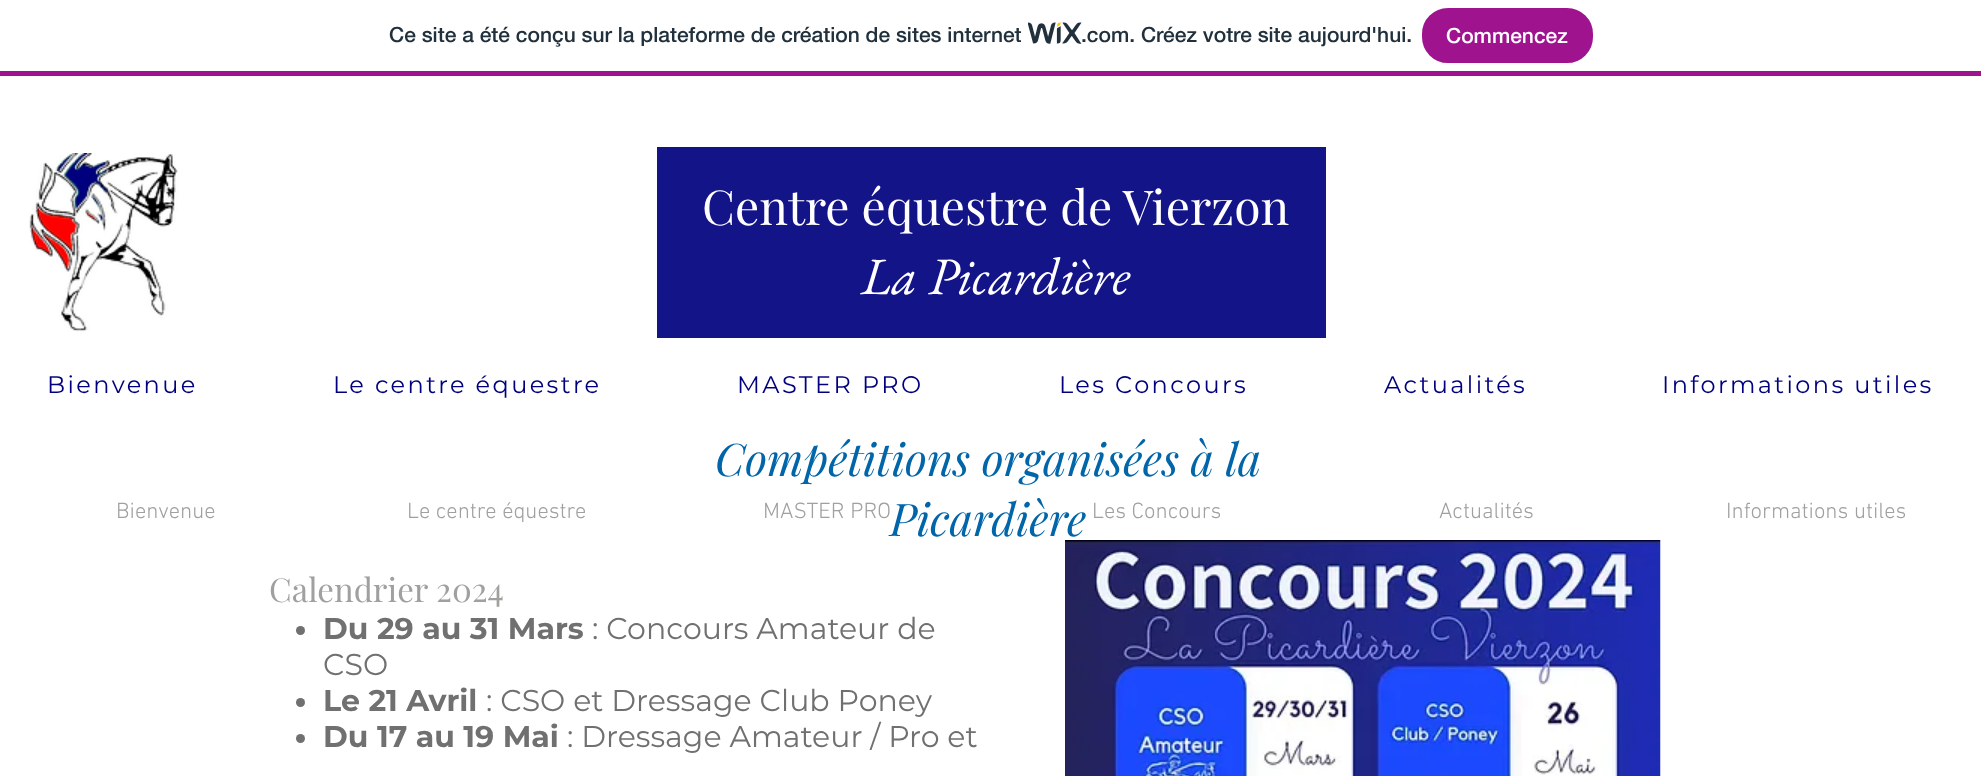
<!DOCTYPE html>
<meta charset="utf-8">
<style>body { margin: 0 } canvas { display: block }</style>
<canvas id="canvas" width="1981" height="776"></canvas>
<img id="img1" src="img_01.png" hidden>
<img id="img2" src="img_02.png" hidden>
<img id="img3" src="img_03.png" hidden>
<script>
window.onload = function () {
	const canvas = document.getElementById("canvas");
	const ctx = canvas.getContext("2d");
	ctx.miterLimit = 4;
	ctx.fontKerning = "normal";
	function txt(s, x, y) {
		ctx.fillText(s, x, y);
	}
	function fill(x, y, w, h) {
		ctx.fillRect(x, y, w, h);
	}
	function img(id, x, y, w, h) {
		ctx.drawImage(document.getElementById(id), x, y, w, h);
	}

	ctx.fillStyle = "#FFFFFF";
	fill(0, 0, 1981, 776);
	ctx.fillStyle = "#A0138E";
	fill(0, 71, 1981, 5);
	img("img1", 1028, 22, 54, 22);
	ctx.beginPath();
	ctx.roundRect(1423, 9, 169, 53, 25);
	ctx.fill();
	ctx.strokeStyle = "#A0138E";
	ctx.lineWidth = 2;
	ctx.stroke();
	img("img2", 29, 153, 149, 179);
	ctx.fillStyle = "#141489";
	fill(657, 147, 669, 191);
	ctx.fillStyle = "#707070";
	ctx.beginPath();
	ctx.arc(300.5, 630.5, 4.5, 0, Math.PI * 2);
	ctx.fill();
	ctx.beginPath();
	ctx.arc(300.5, 702.5, 4.5, 0, Math.PI * 2);
	ctx.fill();
	ctx.beginPath();
	ctx.arc(300.5, 738.5, 4.5, 0, Math.PI * 2);
	ctx.fill();
	img("img3", 1065, 540, 596, 236);
	ctx.font = "500 21px 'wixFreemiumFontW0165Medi'";
	ctx.fillStyle = "#20303C";
	txt("Ce site a été conçu sur la plateforme de création de sites internet", 389, 42);
	txt(".com. Créez votre site aujourd'hui.", 1081, 42);
	ctx.fillStyle = "#FFFFFF";
	txt("Commencez", 1446, 43);
	ctx.font = "48px Playfair Display";
	txt("Centre équestre de Vierzon", 702, 225);
	ctx.font = "italic 52.5px EB Garamond";
	txt("La Picardière", 861, 294);
	ctx.letterSpacing = "2.4px";
	ctx.font = "24px Montserrat";
	ctx.fillStyle = "#00007F";
	txt("Bienvenue", 47, 393);
	txt("Le centre équestre", 333, 393);
	txt("MASTER PRO", 737, 393);
	txt("Les Concours", 1059, 393);
	txt("Actualités", 1384, 393);
	txt("Informations utiles", 1662, 393);
	ctx.letterSpacing = "0px";
	ctx.font = "300 22.5px 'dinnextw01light'";
	ctx.fillStyle = "#A0A09F";
	txt("Bienvenue", 116, 518);
	txt("Le centre équestre", 407, 518);
	txt("MASTER PRO", 763, 518);
	txt("Les Concours", 1092, 518);
	txt("Actualités", 1439, 518);
	txt("Informations utiles", 1726, 518);
	ctx.font = "italic 45px Playfair Display";
	ctx.fillStyle = "#0065A9";
	txt("Compétitions organisées à la", 715, 476);
	txt("Picardière", 890, 536);
	ctx.font = "33px Playfair Display";
	ctx.fillStyle = "#A0A09F";
	txt("Calendrier 2024", 269, 602);
	ctx.font = "bold 30px Montserrat";
	ctx.fillStyle = "#707070";
	txt("Du 29 au 31 Mars", 323, 639);
	ctx.font = "30px Montserrat";
	txt(": Concours Amateur de", 592, 639);
	txt("CSO", 323, 675);
	ctx.font = "bold 30px Montserrat";
	txt("Le 21 Avril", 323, 711);
	ctx.font = "30px Montserrat";
	txt(": CSO et Dressage Club Poney", 486, 711);
	ctx.font = "bold 30px Montserrat";
	txt("Du 17 au 19 Mai", 323, 747);
	ctx.font = "30px Montserrat";
	txt(": Dressage Amateur / Pro et", 567, 747);
};
</script>
